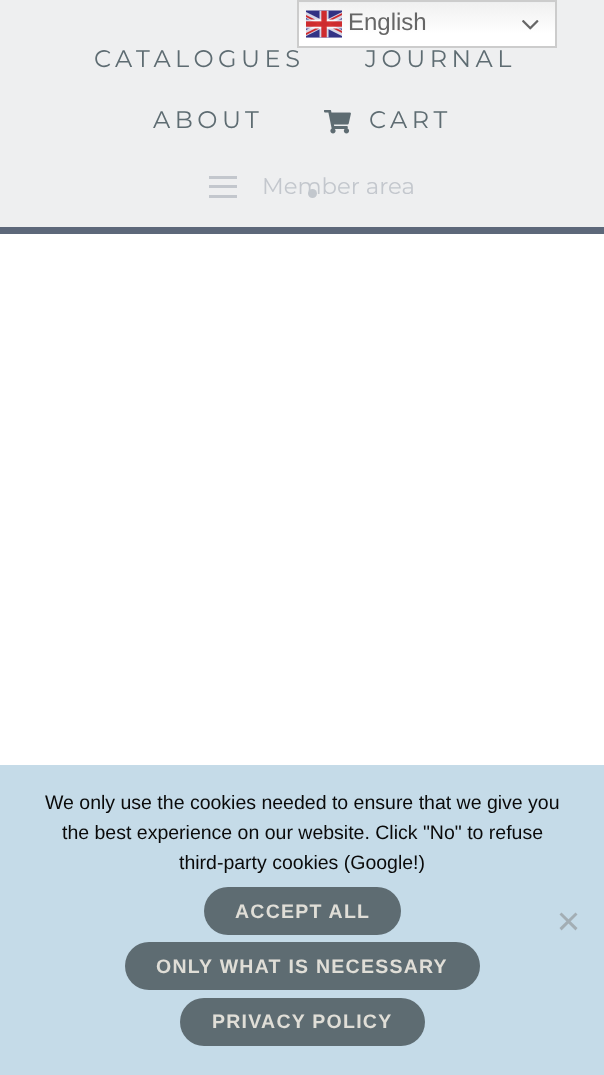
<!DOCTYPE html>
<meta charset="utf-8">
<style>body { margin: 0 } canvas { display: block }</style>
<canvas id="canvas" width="604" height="1075"></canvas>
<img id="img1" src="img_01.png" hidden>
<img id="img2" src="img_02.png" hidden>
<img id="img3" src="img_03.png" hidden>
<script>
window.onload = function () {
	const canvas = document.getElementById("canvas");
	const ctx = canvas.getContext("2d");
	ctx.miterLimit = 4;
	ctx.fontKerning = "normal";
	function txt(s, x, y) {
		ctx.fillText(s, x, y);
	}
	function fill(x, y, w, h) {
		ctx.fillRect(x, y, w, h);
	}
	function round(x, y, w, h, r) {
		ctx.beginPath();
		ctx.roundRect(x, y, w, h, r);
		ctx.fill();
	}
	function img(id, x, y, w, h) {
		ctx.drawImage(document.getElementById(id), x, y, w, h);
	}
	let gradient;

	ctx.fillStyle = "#FFFFFF";
	fill(0, 0, 604, 1075);
	ctx.fillStyle = "#EEEFF0";
	fill(0, 0, 604, 227);
	gradient = ctx.createLinearGradient(427, 0, 427, 48);
	gradient.addColorStop(0, "#EFEFEF");
	gradient.addColorStop(0.7, "#FFFFFF");
	ctx.fillStyle = gradient;
	fill(299, 3, 256, 43);
	ctx.strokeStyle = "#CCCCCC";
	ctx.lineWidth = 2;
	ctx.strokeRect(298, 1, 258, 46);
	img("img1", 306, 10, 36, 28);
	img("img2", 522, 20, 17, 10);
	img("img3", 324, 110, 27, 24);
	ctx.fillStyle = "#C3C7CD";
	fill(209, 195, 28, 3);
	fill(209, 176, 28, 3);
	fill(209, 185, 28, 3);
	ctx.fillStyle = "#5D687A";
	fill(0, 227, 604, 7);
	ctx.fillStyle = "#C5DBE8";
	fill(0, 765, 604, 310);
	ctx.fillStyle = "#5E6C72";
	round(204, 887, 197, 48, 24);
	round(125, 942, 355, 48, 24);
	round(180, 998, 245, 48, 24);
	ctx.fillStyle = "#A3AEB4";
	ctx.beginPath();
	ctx.moveTo(575.5, 912.5);
	ctx.lineTo(577.5, 914.5);
	ctx.lineTo(561.5, 930.5);
	ctx.lineTo(559.5, 928);
	ctx.closePath();
	ctx.fill();
	ctx.beginPath();
	ctx.moveTo(559.5, 914.5);
	ctx.lineTo(561.5, 912.5);
	ctx.lineTo(577.5, 928);
	ctx.lineTo(575.5, 930.5);
	ctx.closePath();
	ctx.fill();
	ctx.font = "24px Liberation Sans";
	ctx.fillStyle = "#666666";
	txt("English", 348, 30);
	ctx.letterSpacing = "4.5px";
	ctx.font = "100 24px Montserrat";
	ctx.fillStyle = "#5E6C72";
	txt("CATALOGUES", 94, 67);
	txt("JOURNAL", 365, 67);
	txt("ABOUT", 153, 128);
	txt("CART", 369, 128);
	ctx.letterSpacing = "0px";
	ctx.font = "100 22.75px Montserrat";
	ctx.fillStyle = "#C3C7CD";
	txt("Member area", 262, 194);
	ctx.fillStyle = "#C2C7CD";
	ctx.beginPath();
	ctx.arc(312.5, 193.5, 4.5, 0, Math.PI * 2);
	ctx.fill();
	ctx.font = "19.5px Liberation Sans";
	ctx.fillStyle = "#0A0A0A";
	txt("We only use the cookies needed to ensure that we give you", 45, 809);
	txt("the best experience on our website. Click \"No\" to refuse", 62, 839);
	txt("third-party cookies (Google!)", 179, 869);
	ctx.letterSpacing = "1.25px";
	ctx.font = "bold 19.5px Liberation Sans";
	ctx.fillStyle = "#E0DED7";
	txt("ACCEPT ALL", 235, 918);
	txt("ONLY WHAT IS NECESSARY", 156, 973);
	txt("PRIVACY POLICY", 212, 1028);
};
</script>
